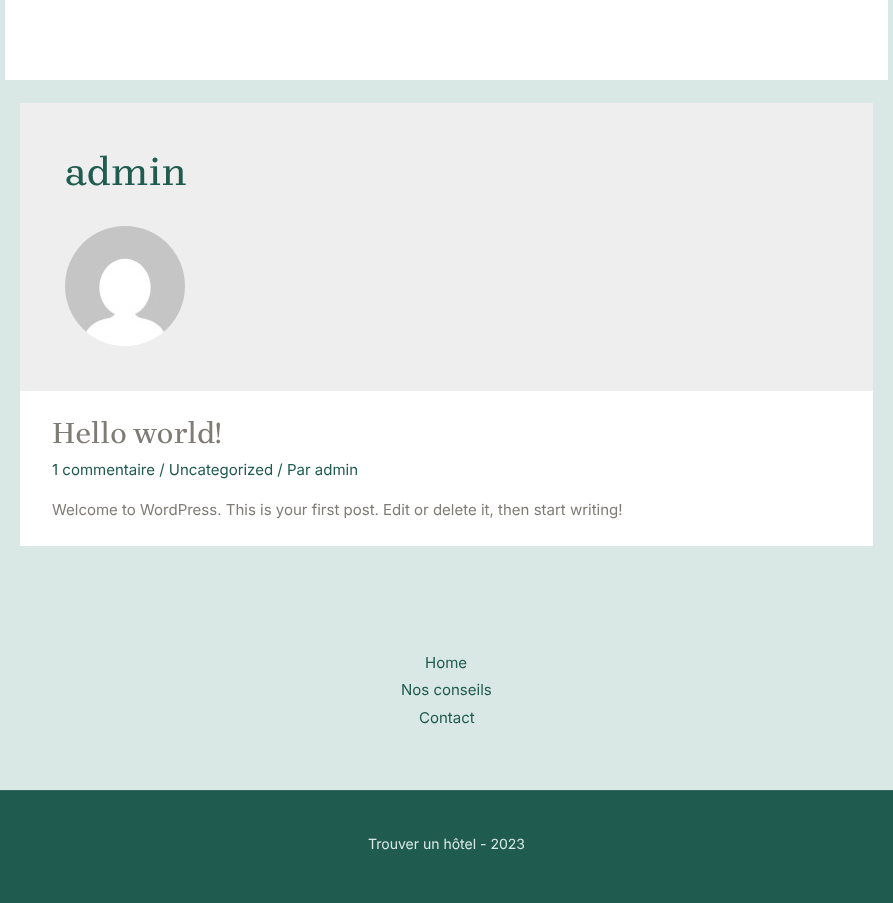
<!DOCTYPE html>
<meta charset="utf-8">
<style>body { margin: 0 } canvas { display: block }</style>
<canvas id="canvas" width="893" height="903"></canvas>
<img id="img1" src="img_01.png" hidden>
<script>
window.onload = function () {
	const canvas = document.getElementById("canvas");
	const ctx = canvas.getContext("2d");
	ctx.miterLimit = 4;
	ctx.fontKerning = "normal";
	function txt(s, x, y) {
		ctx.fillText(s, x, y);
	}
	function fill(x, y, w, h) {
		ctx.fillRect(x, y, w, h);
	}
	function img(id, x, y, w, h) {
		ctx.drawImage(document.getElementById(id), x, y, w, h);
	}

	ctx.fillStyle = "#D9E8E5";
	fill(0, 0, 893, 903);
	ctx.fillStyle = "#FFFFFF";
	fill(5, 0, 883, 80);
	ctx.fillStyle = "#EEEEEE";
	fill(20, 103, 853, 288);
	img("img1", 65, 226, 120, 120);
	ctx.fillStyle = "#FFFFFF";
	fill(20, 391, 853, 155);
	ctx.fillStyle = "#205B4F";
	fill(0, 791, 893, 112);
	ctx.fillStyle = "#32685D";
	fill(0, 790, 893, 1);
	ctx.font = "500 40px 'Brygada 1918'";
	ctx.fillStyle = "#205B4F";
	txt("admin", 65, 185);
	ctx.font = "500 30px 'Brygada 1918'";
	ctx.fillStyle = "#7F7C76";
	txt("Hello world!", 52, 443);
	ctx.font = "15px Inter";
	ctx.fillStyle = "#205B4F";
	txt("1 commentaire / Uncategorized / Par admin", 52, 475);
	ctx.fillStyle = "#7F7C76";
	txt("Welcome to WordPress. This is your first post. Edit or delete it, then start writing!", 52, 515);
	ctx.fillStyle = "#205B4F";
	txt("Home", 425, 668);
	txt("Nos conseils", 401, 695);
	txt("Contact", 419, 723);
	ctx.font = "14px Inter";
	ctx.fillStyle = "#D9E8E5";
	txt("Trouver un hôtel - 2023", 368, 849);
};
</script>
